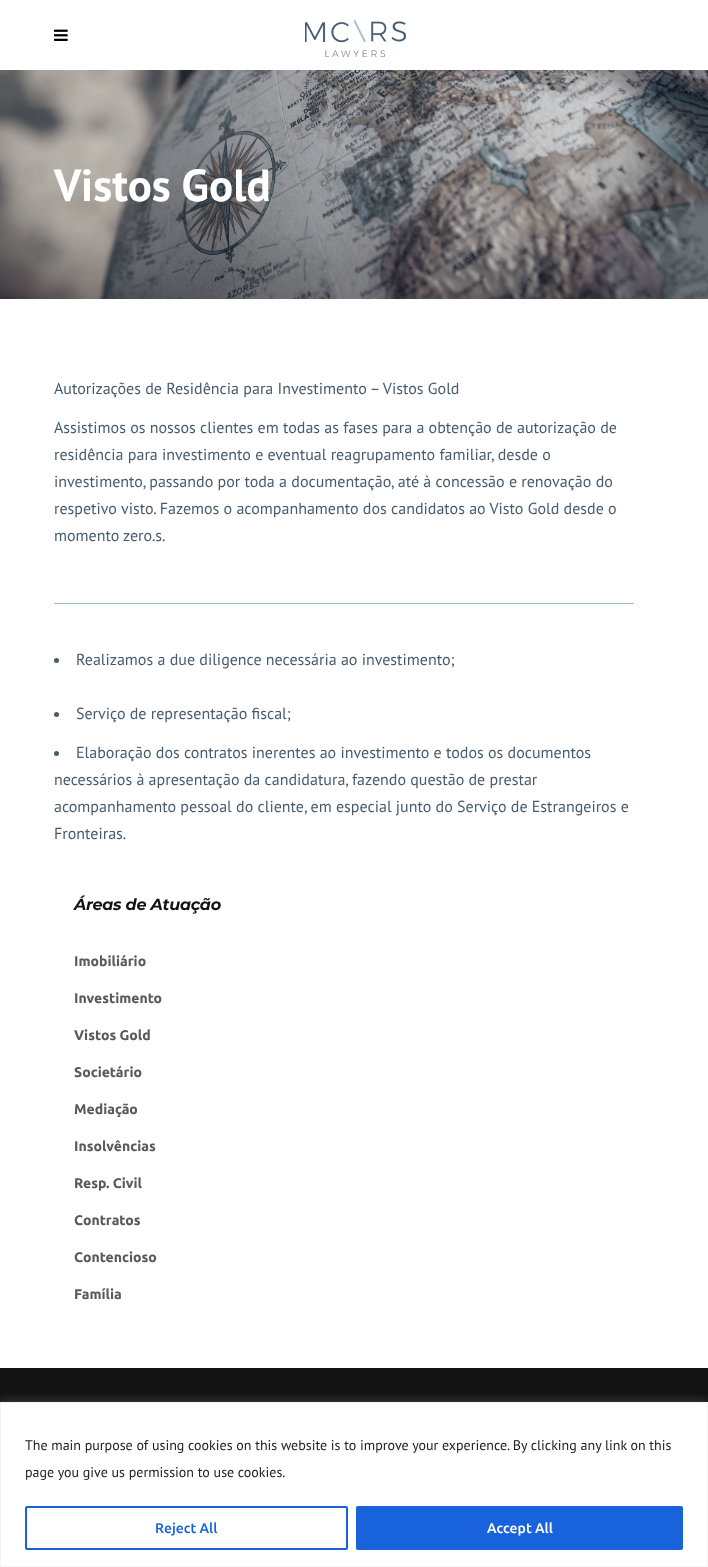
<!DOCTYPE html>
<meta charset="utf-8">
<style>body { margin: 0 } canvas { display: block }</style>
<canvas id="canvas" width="708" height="1567"></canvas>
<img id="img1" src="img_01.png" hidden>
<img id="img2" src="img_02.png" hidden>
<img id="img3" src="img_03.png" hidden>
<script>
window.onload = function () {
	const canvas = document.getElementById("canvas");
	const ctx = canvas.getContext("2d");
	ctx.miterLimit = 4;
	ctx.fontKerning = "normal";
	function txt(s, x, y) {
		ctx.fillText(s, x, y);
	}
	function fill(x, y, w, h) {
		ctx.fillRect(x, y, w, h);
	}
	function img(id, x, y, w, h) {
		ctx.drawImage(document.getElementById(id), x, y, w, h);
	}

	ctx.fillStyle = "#FFFFFF";
	fill(0, 0, 708, 1567);
	img("img1", 54, 29, 14, 12);
	img("img2", 305, 20, 101, 37);
	img("img3", 0, 70, 708, 229);
	ctx.fillStyle = "#9CBED4";
	fill(54, 603, 580, 1);
	ctx.fillStyle = "#475C6E";
	ctx.beginPath();
	ctx.arc(56.5, 660.5, 2.5, 0, Math.PI * 2);
	ctx.fill();
	ctx.beginPath();
	ctx.arc(56.5, 714.5, 2.5, 0, Math.PI * 2);
	ctx.fill();
	ctx.beginPath();
	ctx.arc(56.5, 753.5, 2.5, 0, Math.PI * 2);
	ctx.fill();
	ctx.fillStyle = "#131313";
	fill(0, 1368, 708, 34);
	ctx.fillStyle = "rgba(172, 171, 171, 0.3)";
	ctx.filter = "blur(5px)";
	ctx.beginPath();
	ctx.rect(0, 1401, 708, 165);
	ctx.fill();
	ctx.filter = "none";
	ctx.fillStyle = "#FFFFFF";
	ctx.beginPath();
	ctx.rect(0.5, 1402.5, 707, 164);
	ctx.fill();
	ctx.strokeStyle = "#F4F4F4";
	ctx.stroke();
	ctx.beginPath();
	ctx.roundRect(26, 1507, 321, 42, 1);
	ctx.strokeStyle = "#1863DC";
	ctx.lineWidth = 2;
	ctx.stroke();
	ctx.fillStyle = "#1863DC";
	ctx.beginPath();
	ctx.roundRect(357, 1507, 325, 42, 1);
	ctx.fill();
	ctx.stroke();
	ctx.font = "bold 45px PT Sans";
	ctx.fillStyle = "#FFFFFF";
	txt("Vistos Gold", 54, 201);
	ctx.font = "16px PT Sans";
	ctx.fillStyle = "#475C6E";
	txt("Autorizações de Residência para Investimento – Vistos Gold", 54, 394);
	txt("Assistimos os nossos clientes em todas as fases para a obtenção de autorização de", 54, 433);
	txt("residência para investimento e eventual reagrupamento familiar, desde o", 54, 460);
	txt("investimento, passando por toda a documentação, até à concessão e renovação do", 54, 487);
	txt("respetivo visto. Fazemos o acompanhamento dos candidatos ao Visto Gold desde o", 54, 514);
	txt("momento zero.s.", 54, 541);
	txt("Realizamos a due diligence necessária ao investimento;", 76, 665);
	txt("Serviço de representação fiscal;", 76, 719);
	txt("Elaboração dos contratos inerentes ao investimento e todos os documentos", 76, 758);
	txt("necessários à apresentação da candidatura, fazendo questão de prestar", 54, 785);
	txt("acompanhamento pessoal do cliente, em especial junto do Serviço de Estrangeiros e", 54, 812);
	txt("Fronteiras.", 54, 839);
	ctx.letterSpacing = "-0.25px";
	ctx.font = "italic bold 16px Montserrat";
	ctx.fillStyle = "#121212";
	txt("Áreas de Atuação", 74, 910);
	ctx.letterSpacing = "0px";
	ctx.font = "bold 14px Ubuntu";
	ctx.fillStyle = "#5A5A5A";
	txt("Imobiliário", 74, 966);
	txt("Investimento", 74, 1003);
	txt("Vistos Gold", 74, 1040);
	txt("Societário", 74, 1077);
	txt("Mediação", 74, 1114);
	txt("Insolvências", 74, 1151);
	txt("Resp. Civil", 74, 1188);
	txt("Contratos", 74, 1225);
	txt("Contencioso", 74, 1262);
	txt("Família", 74, 1299);
	ctx.font = "14px PT Sans";
	ctx.fillStyle = "#212121";
	txt("The main purpose of using cookies on this website is to improve your experience. By clicking any link on this", 25, 1450);
	txt("page you give us permission to use cookies.", 25, 1477);
	ctx.font = "500 14px Ubuntu";
	ctx.fillStyle = "#1863DC";
	txt("Reject All", 155, 1533);
	ctx.fillStyle = "#FFFFFF";
	txt("Accept All", 487, 1533);
};
</script>
